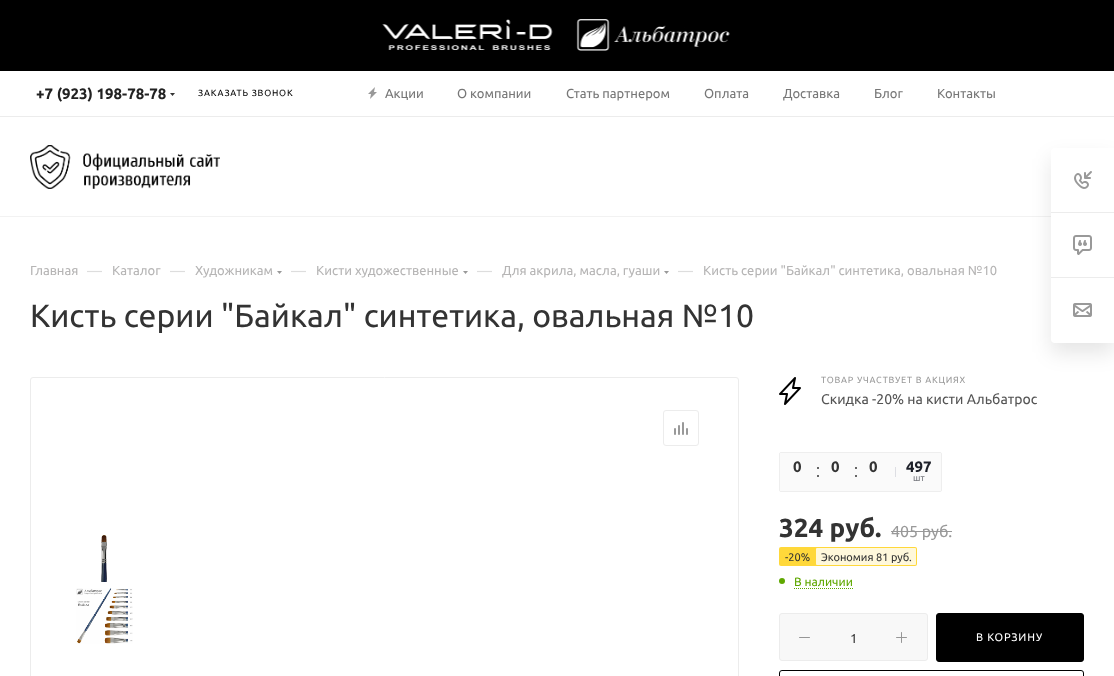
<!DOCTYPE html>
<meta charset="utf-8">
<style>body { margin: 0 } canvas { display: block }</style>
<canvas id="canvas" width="1114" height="676"></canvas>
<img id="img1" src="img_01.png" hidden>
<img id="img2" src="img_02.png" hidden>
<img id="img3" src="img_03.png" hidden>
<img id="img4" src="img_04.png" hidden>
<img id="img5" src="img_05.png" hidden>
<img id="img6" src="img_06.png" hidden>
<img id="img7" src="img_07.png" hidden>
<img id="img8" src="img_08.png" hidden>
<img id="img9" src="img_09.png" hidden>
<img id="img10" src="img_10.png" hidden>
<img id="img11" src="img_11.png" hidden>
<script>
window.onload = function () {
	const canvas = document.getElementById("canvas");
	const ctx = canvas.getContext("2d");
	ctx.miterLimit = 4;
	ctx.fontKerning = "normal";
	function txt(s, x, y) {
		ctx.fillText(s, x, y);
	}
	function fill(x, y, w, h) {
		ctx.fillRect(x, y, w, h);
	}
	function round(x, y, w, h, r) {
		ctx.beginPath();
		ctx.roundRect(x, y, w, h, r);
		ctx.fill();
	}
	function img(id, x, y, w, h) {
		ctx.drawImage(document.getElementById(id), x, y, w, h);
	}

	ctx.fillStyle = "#FFFFFF";
	fill(0, 0, 1114, 676);
	img("img1", 0, 0, 1114, 71);
	ctx.fillStyle = "#ECECEC";
	fill(0, 116, 1114, 1);
	ctx.fillStyle = "#333333";
	ctx.beginPath();
	ctx.moveTo(170, 93);
	ctx.lineTo(175, 93);
	ctx.lineTo(172.5, 96);
	ctx.closePath();
	ctx.fill("evenodd");
	img("img2", 368, 87, 9, 12);
	img("img3", 30, 145, 190, 44);
	ctx.fillStyle = "#F2F2F2";
	fill(0, 216, 1051, 1);
	ctx.fillStyle = "#999999";
	ctx.beginPath();
	ctx.moveTo(277, 271);
	ctx.lineTo(282, 271);
	ctx.lineTo(279.5, 274);
	ctx.closePath();
	ctx.fill("evenodd");
	ctx.beginPath();
	ctx.moveTo(463, 271);
	ctx.lineTo(468, 271);
	ctx.lineTo(465.5, 274);
	ctx.closePath();
	ctx.fill("evenodd");
	ctx.beginPath();
	ctx.moveTo(664, 271);
	ctx.lineTo(669, 271);
	ctx.lineTo(666.5, 274);
	ctx.closePath();
	ctx.fill("evenodd");
	ctx.beginPath();
	ctx.roundRect(30.5, 377.5, 708, 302, 2.5);
	ctx.strokeStyle = "#ECECEC";
	ctx.stroke();
	ctx.beginPath();
	ctx.roundRect(663.5, 410.5, 35, 35, 2.5);
	ctx.stroke();
	img("img4", 674, 422, 14, 13);
	img("img5", 101, 535, 6, 47);
	img("img6", 76, 588, 57, 56);
	img("img7", 779, 377, 22, 28);
	ctx.beginPath();
	ctx.roundRect(779.5, 452.5, 162, 39, 1.5);
	ctx.strokeStyle = "#EEEEEE";
	ctx.stroke();
	ctx.fillStyle = "#FAFAFA";
	ctx.beginPath();
	ctx.roundRect(780, 453, 115, 38, [1, 0, 0, 1]);
	ctx.fill();
	ctx.fillStyle = "#333333";
	ctx.beginPath();
	ctx.arc(818, 468, 1, 0, Math.PI * 2);
	ctx.fill();
	ctx.beginPath();
	ctx.arc(818, 476, 1, 0, Math.PI * 2);
	ctx.fill();
	ctx.beginPath();
	ctx.arc(856, 468, 1, 0, Math.PI * 2);
	ctx.fill();
	ctx.beginPath();
	ctx.arc(856, 476, 1, 0, Math.PI * 2);
	ctx.fill();
	ctx.fillStyle = "#FAFAFA";
	ctx.beginPath();
	ctx.roundRect(895, 453, 46, 38, [0, 2, 2, 0]);
	ctx.fill();
	ctx.fillStyle = "#DDDEE3";
	fill(895, 467, 1, 10);
	ctx.fillStyle = "#999999";
	fill(891, 531, 61, 1);
	ctx.fillStyle = "#FFD83A";
	round(779, 547, 138, 19, 2);
	ctx.fillStyle = "#FFF8DB";
	round(816, 548, 100, 17, 1);
	ctx.fillStyle = "#5FA800";
	ctx.beginPath();
	ctx.arc(782, 581, 3, 0, Math.PI * 2);
	ctx.fill();
	ctx.beginPath();
	ctx.moveTo(794, 588.5);
	ctx.lineTo(853, 588.5);
	ctx.strokeStyle = "#5FA800";
	ctx.setLineDash([1, 1]);
	ctx.stroke();
	ctx.fillStyle = "#F8F8F8";
	ctx.beginPath();
	ctx.roundRect(779.5, 613.5, 148, 47, 2.5);
	ctx.fill();
	ctx.strokeStyle = "#ECECEC";
	ctx.setLineDash([]);
	ctx.stroke();
	ctx.fillStyle = "#969696";
	round(799, 637, 11, 1, 0.5);
	img("img8", 896, 632, 11, 11);
	ctx.fillStyle = "#000000";
	ctx.beginPath();
	ctx.roundRect(936.5, 613.5, 147, 48, 2.5);
	ctx.fill();
	ctx.strokeStyle = "#000000";
	ctx.stroke();
	ctx.beginPath();
	ctx.roundRect(779.5, 670.5, 304, 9, 2.5);
	ctx.stroke();
	ctx.fillStyle = "rgba(0, 0, 0, 0.1)";
	ctx.filter = "blur(10px)";
	ctx.beginPath();
	ctx.roundRect(1051, 158, 63, 195, 4);
	ctx.fill();
	ctx.filter = "none";
	ctx.fillStyle = "#FFFFFF";
	ctx.beginPath();
	ctx.roundRect(1051, 148, 63, 195, [4, 0, 0, 4]);
	ctx.fill();
	ctx.fillStyle = "#ECECEC";
	fill(1051, 212, 63, 1);
	img("img9", 1074, 171, 18, 18);
	fill(1051, 277, 63, 1);
	img("img10", 1073, 235, 19, 20);
	img("img11", 1073, 303, 19, 14);
	ctx.font = "bold 15px Ubuntu";
	ctx.fillStyle = "#222222";
	txt("+7 (923) 198-78-78", 36, 99);
	ctx.letterSpacing = "0.8px";
	ctx.font = "9px Ubuntu";
	ctx.fillStyle = "#000000";
	txt("ЗАКАЗАТЬ ЗВОНОК", 198, 96);
	ctx.letterSpacing = "0px";
	ctx.font = "13px Ubuntu";
	ctx.fillStyle = "#777777";
	txt("Акции", 385, 98);
	txt("О компании", 457, 98);
	txt("Стать партнером", 566, 98);
	txt("Оплата", 704, 98);
	txt("Доставка", 783, 98);
	txt("Блог", 874, 98);
	txt("Контакты", 937, 98);
	ctx.fillStyle = "#B6B5B5";
	txt("Главная", 30, 275);
	ctx.font = "15px Ubuntu";
	ctx.fillStyle = "#DDDDDD";
	txt("—", 87, 276);
	ctx.font = "13px Ubuntu";
	ctx.fillStyle = "#B6B5B5";
	txt("Каталог", 112, 275);
	ctx.font = "15px Ubuntu";
	ctx.fillStyle = "#DDDDDD";
	txt("—", 170, 276);
	ctx.font = "13px Ubuntu";
	ctx.fillStyle = "#B6B5B5";
	txt("Художникам", 195, 275);
	ctx.font = "15px Ubuntu";
	ctx.fillStyle = "#DDDDDD";
	txt("—", 291, 276);
	ctx.font = "13px Ubuntu";
	ctx.fillStyle = "#B6B5B5";
	txt("Кисти художественные", 316, 275);
	ctx.font = "15px Ubuntu";
	ctx.fillStyle = "#DDDDDD";
	txt("—", 477, 276);
	ctx.font = "13px Ubuntu";
	ctx.fillStyle = "#B6B5B5";
	txt("Для акрила, масла, гуаши", 502, 275);
	ctx.font = "15px Ubuntu";
	ctx.fillStyle = "#DDDDDD";
	txt("—", 678, 276);
	ctx.font = "13px Ubuntu";
	ctx.fillStyle = "#B6B5B5";
	txt("Кисть серии \"Байкал\" синтетика, овальная №10", 703, 275);
	ctx.font = "32px Ubuntu";
	ctx.fillStyle = "#333333";
	txt("Кисть серии \"Байкал\" синтетика, овальная №10", 30, 327);
	ctx.letterSpacing = "0.8px";
	ctx.font = "9px Ubuntu";
	ctx.fillStyle = "#999999";
	txt("ТОВАР УЧАСТВУЕТ В АКЦИЯХ", 821, 383);
	ctx.letterSpacing = "0px";
	ctx.font = "14px Ubuntu";
	ctx.fillStyle = "#555555";
	txt("Скидка -20% на кисти Альбатрос", 821, 404);
	ctx.font = "bold 15px Ubuntu";
	ctx.fillStyle = "#333333";
	txt("0", 793, 472);
	txt("0", 831, 472);
	txt("0", 869, 472);
	ctx.fillStyle = "#1D2029";
	txt("497", 906, 472);
	ctx.font = "9px Ubuntu";
	ctx.fillStyle = "#75777D";
	txt("шт", 913, 481);
	ctx.font = "bold 26px Ubuntu";
	ctx.fillStyle = "#333333";
	txt("324 руб.", 779, 537);
	ctx.font = "16px Ubuntu";
	ctx.fillStyle = "#999999";
	txt("405 руб.", 891, 537);
	ctx.font = "11px Ubuntu";
	ctx.fillStyle = "#333333";
	txt("-20%", 785, 561);
	txt("Экономия 81 руб.", 821, 561);
	ctx.font = "12px Ubuntu";
	ctx.fillStyle = "#5FA800";
	txt("В наличии", 794, 586);
	ctx.font = "13px Ubuntu";
	ctx.fillStyle = "#333333";
	txt("1", 850, 643);
	ctx.letterSpacing = "0.8px";
	ctx.font = "11px Ubuntu";
	ctx.fillStyle = "#FFFFFF";
	txt("В КОРЗИНУ", 976, 641);
};
</script>
